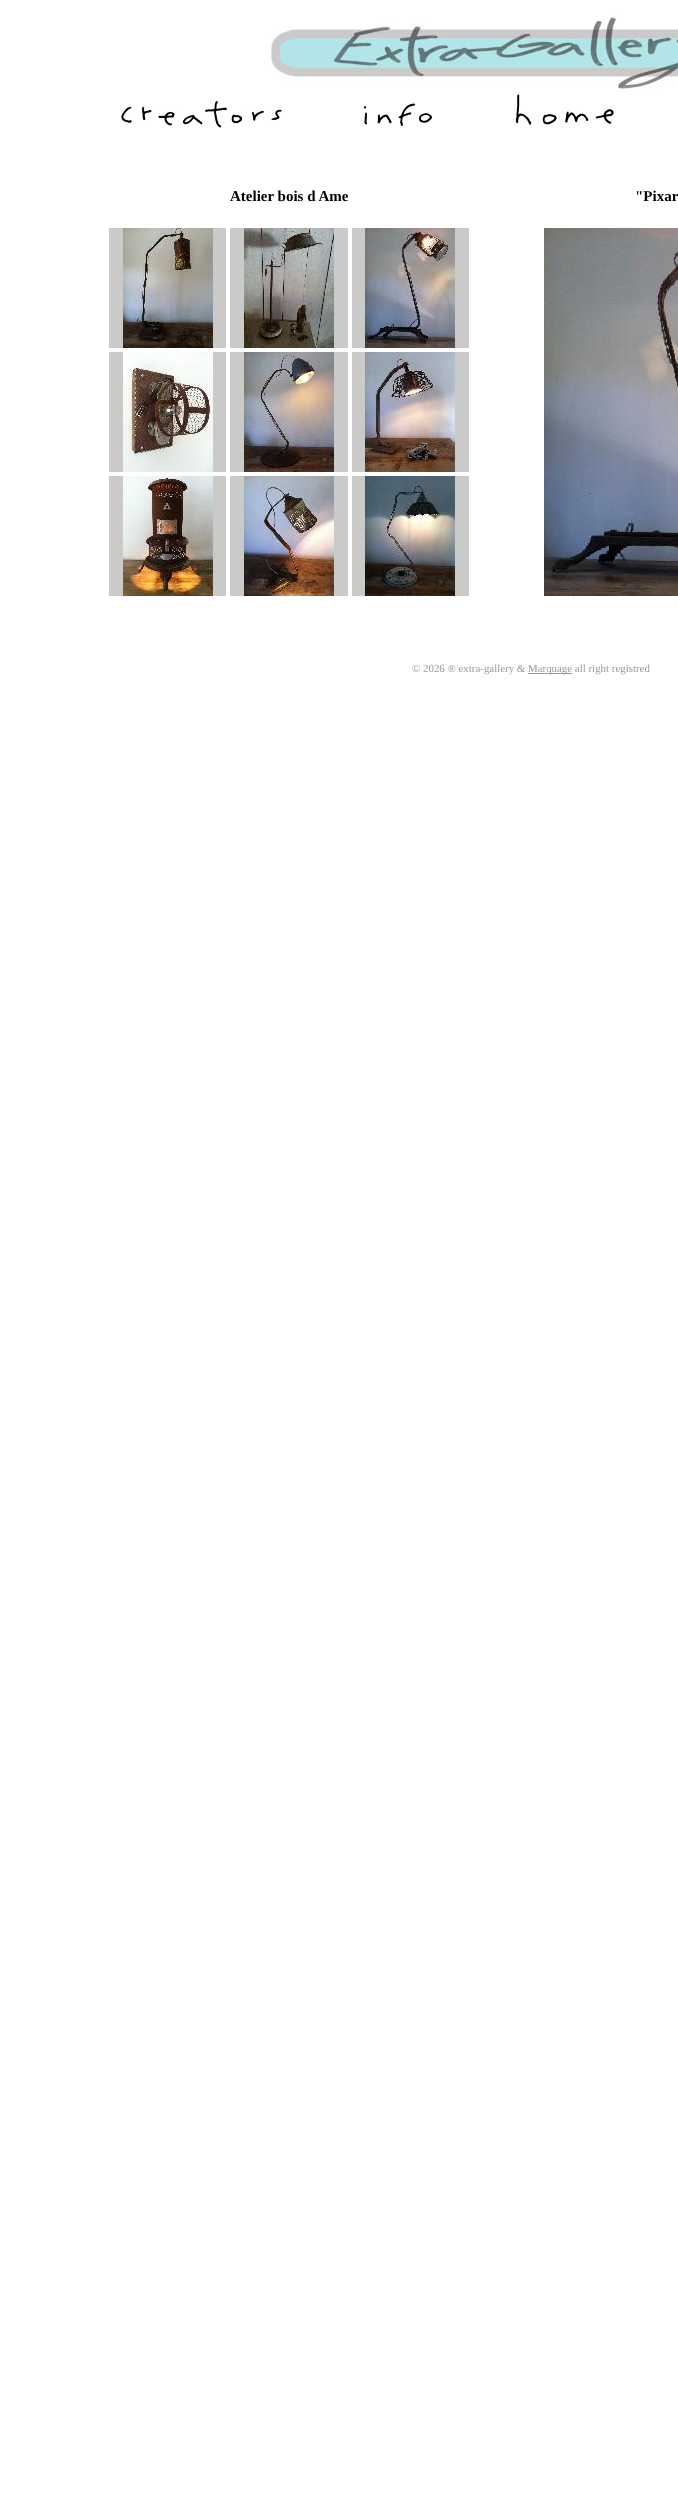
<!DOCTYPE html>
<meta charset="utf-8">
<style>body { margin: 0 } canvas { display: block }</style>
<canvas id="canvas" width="678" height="2513"></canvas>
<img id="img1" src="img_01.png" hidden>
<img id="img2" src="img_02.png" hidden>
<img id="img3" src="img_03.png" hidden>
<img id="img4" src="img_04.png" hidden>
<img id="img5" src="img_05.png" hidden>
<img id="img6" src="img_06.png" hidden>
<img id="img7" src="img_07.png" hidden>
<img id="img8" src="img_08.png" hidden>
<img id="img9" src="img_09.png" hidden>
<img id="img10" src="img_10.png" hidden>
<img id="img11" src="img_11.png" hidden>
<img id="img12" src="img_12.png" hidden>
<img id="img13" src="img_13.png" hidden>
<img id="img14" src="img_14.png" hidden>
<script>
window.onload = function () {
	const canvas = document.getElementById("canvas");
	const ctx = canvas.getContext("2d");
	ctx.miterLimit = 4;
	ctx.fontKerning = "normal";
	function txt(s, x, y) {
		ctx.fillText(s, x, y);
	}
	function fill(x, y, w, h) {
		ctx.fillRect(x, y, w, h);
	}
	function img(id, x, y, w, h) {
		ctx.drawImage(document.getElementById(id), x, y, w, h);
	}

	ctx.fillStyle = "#FFFFFF";
	fill(0, 0, 678, 2513);
	img("img1", 267, 4, 411, 96);
	img("img2", 121, 101, 161, 27);
	img("img3", 363, 103, 69, 23);
	img("img4", 515, 90, 106, 35);
	ctx.fillStyle = "#CACAC9";
	fill(109, 228, 117, 120);
	img("img5", 123, 228, 90, 120);
	fill(230, 228, 118, 120);
	img("img6", 244, 228, 90, 120);
	fill(352, 228, 117, 120);
	img("img7", 365, 228, 90, 120);
	fill(109, 352, 117, 120);
	img("img8", 123, 352, 90, 120);
	fill(230, 352, 118, 120);
	img("img9", 244, 352, 90, 120);
	fill(352, 352, 117, 120);
	img("img10", 365, 352, 90, 120);
	fill(109, 476, 117, 120);
	img("img11", 123, 476, 90, 120);
	fill(230, 476, 118, 120);
	img("img12", 244, 476, 90, 120);
	fill(352, 476, 117, 120);
	img("img13", 365, 476, 90, 120);
	img("img14", 544, 228, 134, 368);
	ctx.fillStyle = "#999999";
	fill(528, 673, 44, 1);
	ctx.font = "bold 15px Liberation Serif";
	ctx.fillStyle = "#000000";
	txt("Atelier bois d Ame", 230, 201);
	txt("\"Pixar", 635, 201);
	ctx.font = "10.9px Liberation Serif";
	ctx.fillStyle = "#999999";
	txt("© 2026 ® extra-gallery &", 412, 672);
	txt("Marquage all right registred", 528, 672);
};
</script>
